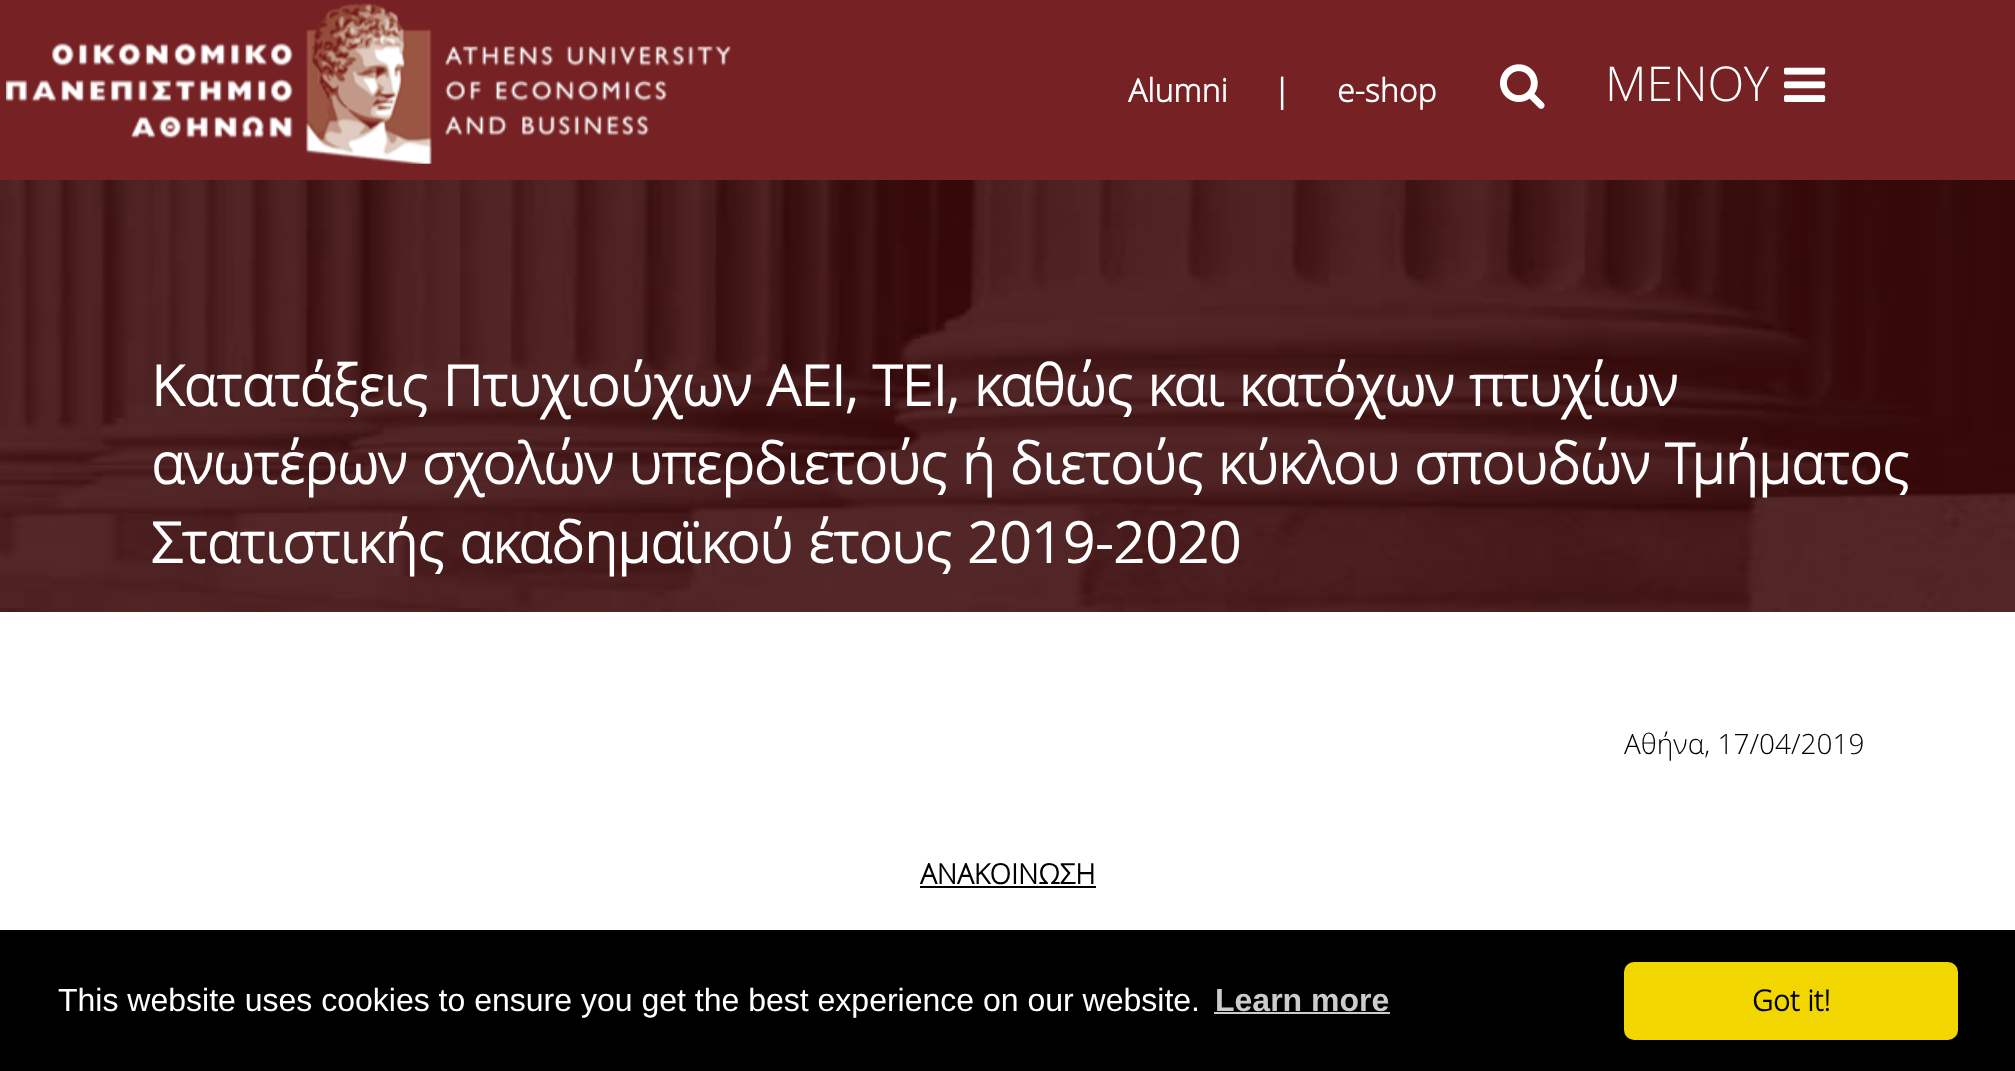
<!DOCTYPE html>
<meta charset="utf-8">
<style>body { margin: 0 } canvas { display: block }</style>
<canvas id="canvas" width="2015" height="1071"></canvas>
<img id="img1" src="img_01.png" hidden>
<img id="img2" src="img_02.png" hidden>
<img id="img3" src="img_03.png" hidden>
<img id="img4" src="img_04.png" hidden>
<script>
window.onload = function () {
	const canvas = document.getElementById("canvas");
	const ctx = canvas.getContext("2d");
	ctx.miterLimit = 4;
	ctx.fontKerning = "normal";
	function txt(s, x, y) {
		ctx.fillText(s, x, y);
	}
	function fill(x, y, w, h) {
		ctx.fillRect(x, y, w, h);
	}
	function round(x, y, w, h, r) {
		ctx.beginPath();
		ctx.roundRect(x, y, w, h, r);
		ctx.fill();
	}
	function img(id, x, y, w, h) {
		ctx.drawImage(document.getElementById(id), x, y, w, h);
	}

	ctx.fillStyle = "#FFFFFF";
	fill(0, 0, 2015, 1071);
	ctx.fillStyle = "#762124";
	fill(0, 0, 2015, 180);
	img("img1", 6, 3, 725, 161);
	img("img2", 1500, 64, 45, 45);
	img("img3", 1784, 67, 42, 35);
	img("img4", 0, 180, 2015, 432);
	ctx.fillStyle = "#000000";
	fill(920, 886, 176, 2);
	fill(0, 930, 2015, 141);
	ctx.fillStyle = "#CCCCCC";
	fill(1214, 1012, 176, 2);
	ctx.fillStyle = "#F1D600";
	round(1624, 962, 334, 78, 10);
	ctx.font = "bold 32px Open Sans";
	ctx.fillStyle = "#FFFFFF";
	txt("Alumni", 1128, 102);
	txt("|", 1273, 102);
	txt("e-shop", 1337, 102);
	ctx.font = "300 48px Open Sans";
	txt("ΜΕΝΟΥ", 1605, 101);
	ctx.wordSpacing = "0.5px";
	ctx.font = "bold 56px Open Sans";
	txt("Κατατάξεις Πτυχιούχων ΑΕΙ, ΤΕΙ, καθώς και κατόχων πτυχίων", 151, 406);
	txt("ανωτέρων σχολών υπερδιετούς ή διετούς κύκλου σπουδών Τμήματος", 151, 484);
	ctx.wordSpacing = "1px";
	txt("Στατιστικής ακαδημαϊκού έτους 2019-2020", 151, 563);
	ctx.wordSpacing = "0px";
	ctx.font = "300 28px Open Sans";
	ctx.fillStyle = "#000000";
	txt("Αθήνα, 17/04/2019", 1624, 754);
	ctx.font = "bold 28px Open Sans";
	txt("ΑΝΑΚΟΙΝΩΣΗ", 920, 884);
	ctx.font = "32px Liberation Sans";
	ctx.fillStyle = "#FFFFFF";
	txt("This website uses cookies to ensure you get the best experience on our website.", 58, 1011);
	ctx.font = "bold 32px Liberation Sans";
	ctx.fillStyle = "#CCCCCC";
	txt("Learn more", 1215, 1011);
	ctx.font = "bold 29px Open Sans";
	ctx.fillStyle = "#000000";
	txt("Got it!", 1752, 1011);
};
</script>
